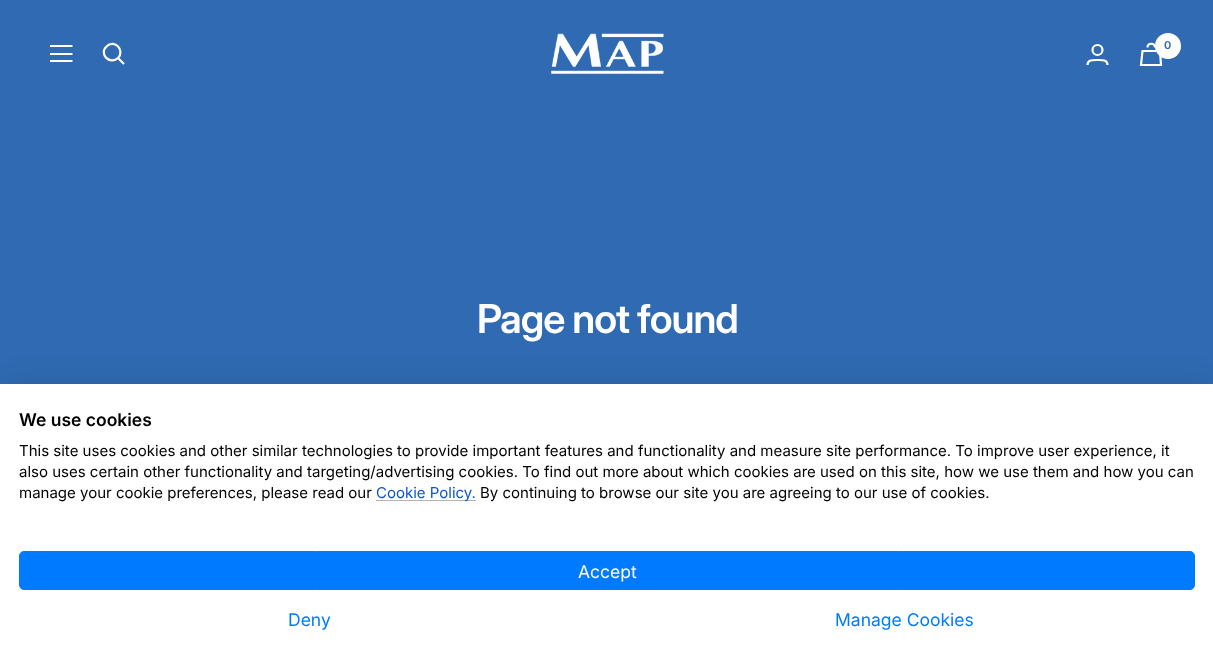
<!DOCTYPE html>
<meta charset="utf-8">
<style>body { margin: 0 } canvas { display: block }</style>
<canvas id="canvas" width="1213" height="672"></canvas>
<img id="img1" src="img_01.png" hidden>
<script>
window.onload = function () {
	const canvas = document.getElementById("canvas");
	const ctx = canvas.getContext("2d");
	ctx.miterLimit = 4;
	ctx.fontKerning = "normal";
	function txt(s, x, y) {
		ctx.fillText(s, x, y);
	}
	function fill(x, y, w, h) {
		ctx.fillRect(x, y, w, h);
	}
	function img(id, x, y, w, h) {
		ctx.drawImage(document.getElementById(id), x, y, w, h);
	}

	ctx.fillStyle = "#2F6AB2";
	fill(0, 0, 1213, 672);
	ctx.beginPath();
	ctx.moveTo(50, 46);
	ctx.lineTo(72.5, 46);
	ctx.moveTo(50, 61);
	ctx.lineTo(72.5, 61);
	ctx.closePath();
	ctx.moveTo(50, 54);
	ctx.lineTo(72.5, 54);
	ctx.closePath();
	ctx.strokeStyle = "#FFFFFF";
	ctx.lineWidth = 2.2;
	ctx.stroke();
	ctx.beginPath();
	ctx.moveTo(118, 58);
	ctx.bezierCurveTo(125.5, 50, 114, 38.5, 106.5, 46.5);
	ctx.bezierCurveTo(98.5, 54, 110, 65.5, 118, 58);
	ctx.closePath();
	ctx.moveTo(118, 58);
	ctx.lineTo(124, 64);
	ctx.stroke();
	img("img1", 551, 33, 113, 41);
	ctx.beginPath();
	ctx.arc(1097.5, 50, 5, 0, Math.PI * 2);
	ctx.stroke();
	ctx.beginPath();
	ctx.moveTo(1087.5, 65);
	ctx.bezierCurveTo(1087.5, 59.5, 1093.5, 60, 1097.5, 60);
	ctx.bezierCurveTo(1101.5, 60, 1107.5, 59.5, 1107.5, 65);
	ctx.stroke();
	ctx.beginPath();
	ctx.moveTo(1142.5, 51);
	ctx.lineTo(1160, 51);
	ctx.lineTo(1161, 65);
	ctx.lineTo(1141, 65);
	ctx.closePath();
	ctx.moveTo(1155, 47.5);
	ctx.bezierCurveTo(1155, 42.5, 1147.5, 42.5, 1147.5, 47.5);
	ctx.stroke();
	ctx.fillStyle = "#FFFFFF";
	ctx.beginPath();
	ctx.arc(1168, 46, 13, 0, Math.PI * 2);
	ctx.fill();
	ctx.fillStyle = "rgba(0, 0, 0, 0.1)";
	ctx.filter = "blur(15px)";
	ctx.beginPath();
	ctx.rect(0, 384, 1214, 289);
	ctx.fill();
	ctx.filter = "none";
	ctx.fillStyle = "#FFFFFF";
	fill(0, 384, 1213, 288);
	ctx.fillStyle = "#B4B4B4";
	fill(376, 500, 100, 1);
	ctx.fillStyle = "#007BFF";
	ctx.beginPath();
	ctx.roundRect(19.5, 551.5, 1175, 38, 4.5);
	ctx.fill();
	ctx.strokeStyle = "#007BFF";
	ctx.lineWidth = 1;
	ctx.stroke();
	ctx.font = "600 11px 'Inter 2'";
	ctx.fillStyle = "#2F6AB2";
	txt("0", 1164, 49);
	ctx.letterSpacing = "-1px";
	ctx.font = "600 40px Inter";
	ctx.fillStyle = "#FFFFFF";
	txt("Page not found", 477, 333);
	ctx.letterSpacing = "0px";
	ctx.font = "600 17.5px 'Inter 2'";
	ctx.fillStyle = "#000000";
	txt("We use cookies", 19, 426);
	ctx.font = "15px Inter";
	txt("This site uses cookies and other similar technologies to provide important features and functionality and measure site performance. To improve user experience, it", 19, 456);
	txt("also uses certain other functionality and targeting/advertising cookies. To find out more about which cookies are used on this site, how we use them and how you can", 19, 477);
	txt("manage your cookie preferences, please read our", 19, 498);
	ctx.fillStyle = "#0D56C9";
	txt("Cookie Policy.", 376, 498);
	ctx.fillStyle = "#000000";
	txt("By continuing to browse our site you are agreeing to our use of cookies.", 480, 498);
	ctx.font = "17.5px Inter";
	ctx.fillStyle = "#FFFFFF";
	txt("Accept", 578, 578);
	ctx.fillStyle = "#007BFF";
	txt("Deny", 288, 626);
	txt("Manage Cookies", 835, 626);
};
</script>
